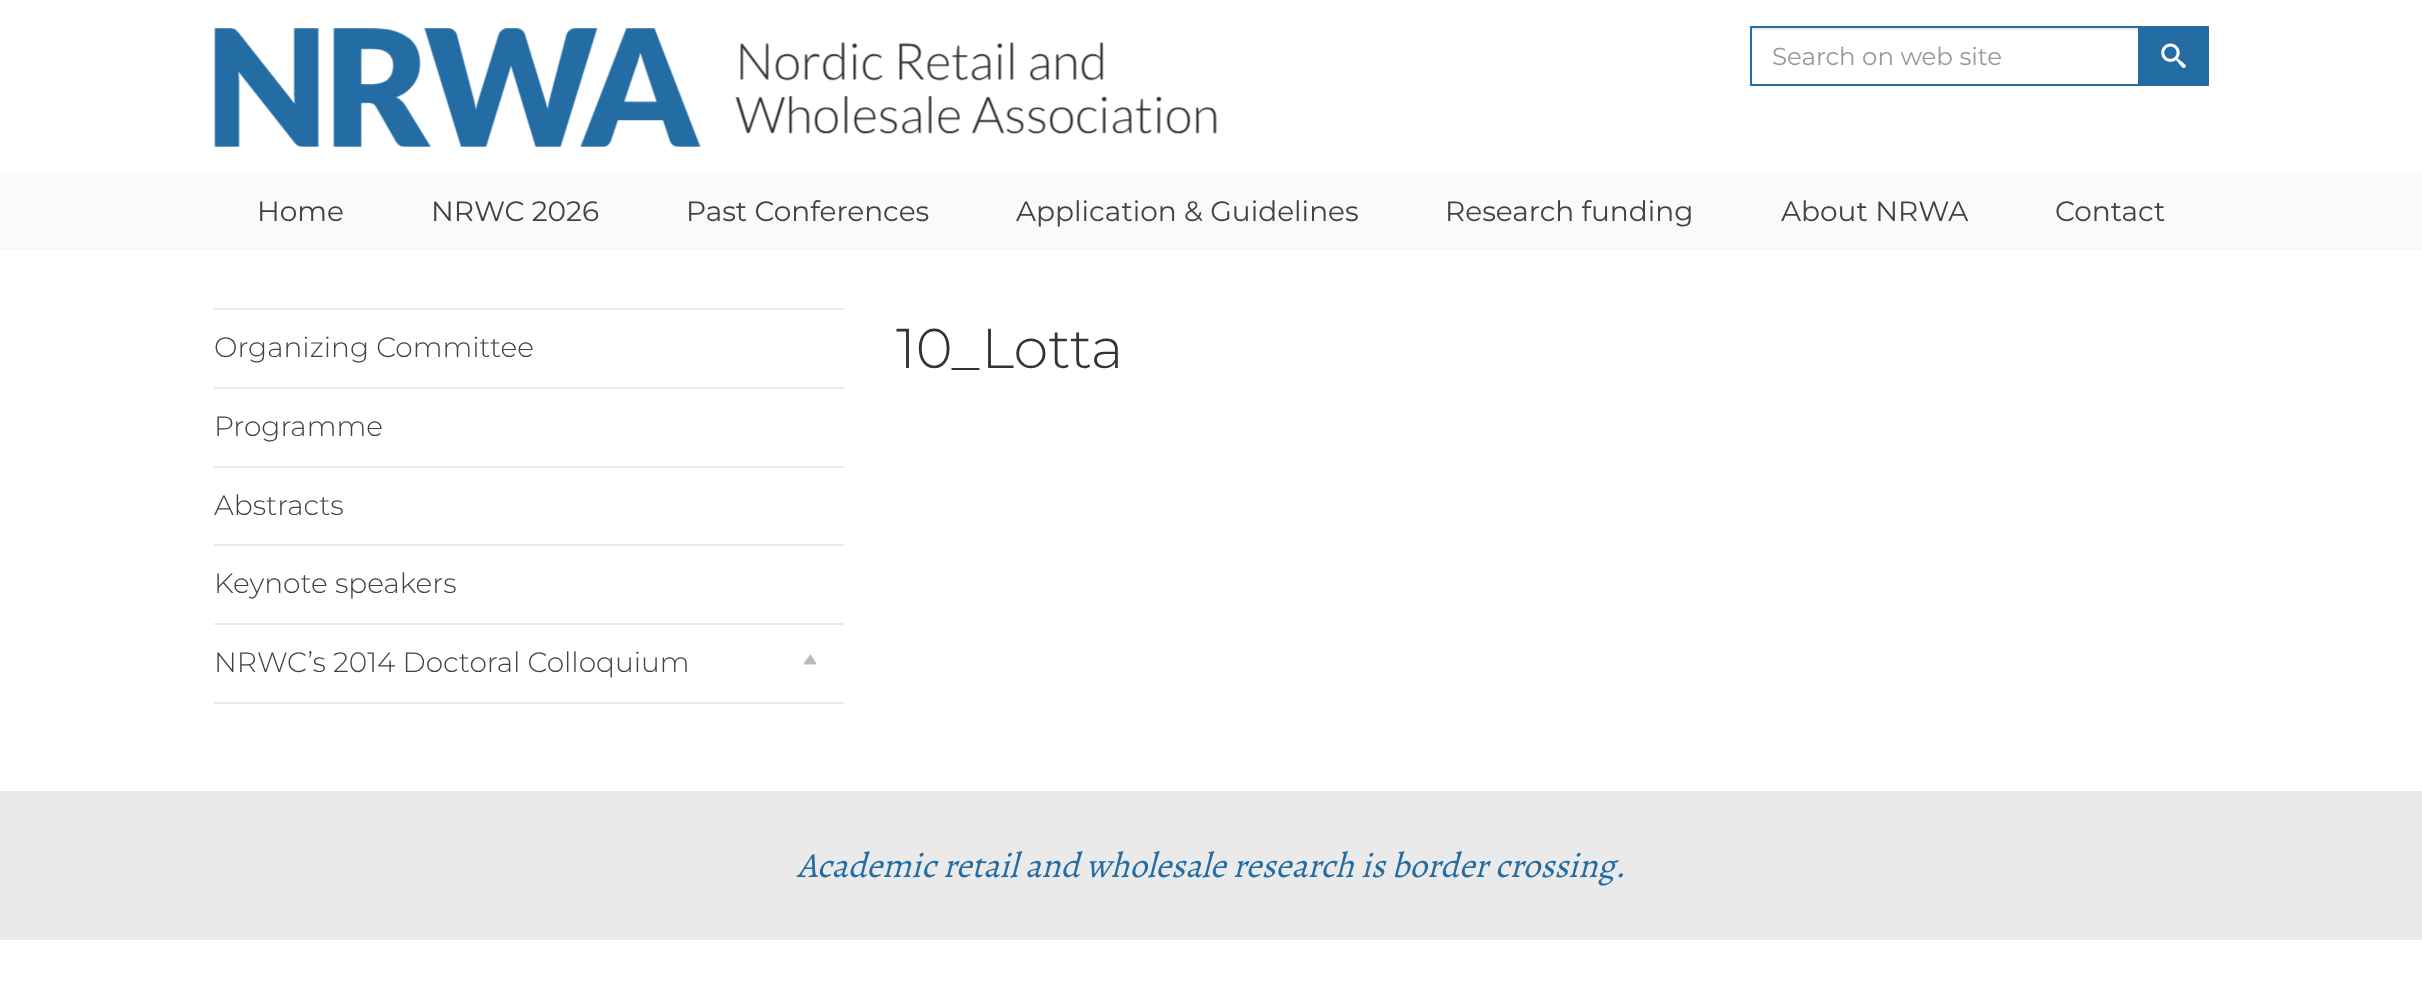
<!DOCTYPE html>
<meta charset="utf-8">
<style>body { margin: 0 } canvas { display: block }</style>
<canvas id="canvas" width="2422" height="1007"></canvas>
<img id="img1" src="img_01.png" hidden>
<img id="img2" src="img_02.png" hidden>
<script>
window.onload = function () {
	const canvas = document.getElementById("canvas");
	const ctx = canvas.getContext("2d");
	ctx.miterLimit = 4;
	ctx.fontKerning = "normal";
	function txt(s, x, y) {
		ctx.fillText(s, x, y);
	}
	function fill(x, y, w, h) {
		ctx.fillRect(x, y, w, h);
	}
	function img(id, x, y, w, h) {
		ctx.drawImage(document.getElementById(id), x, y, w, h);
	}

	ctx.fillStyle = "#FFFFFF";
	fill(0, 0, 2422, 1007);
	img("img1", 214, 28, 1003, 119);
	ctx.fillStyle = "#ECECEC";
	fill(1752, 28, 387, 2);
	ctx.strokeStyle = "#236DA4";
	ctx.lineWidth = 2;
	ctx.strokeRect(1751, 27, 388, 58);
	ctx.fillStyle = "#236DA4";
	fill(2140, 26, 69, 60);
	img("img2", 2161, 43, 25, 25);
	ctx.fillStyle = "#FAFAFA";
	fill(0, 173, 2422, 77);
	ctx.fillStyle = "#EAEAEA";
	fill(214, 308, 630, 2);
	fill(214, 387, 630, 2);
	fill(214, 466, 630, 2);
	fill(214, 544, 630, 2);
	fill(214, 623, 630, 2);
	fill(214, 702, 630, 2);
	ctx.fillStyle = "#BBBBBB";
	ctx.beginPath();
	ctx.moveTo(810.5, 654);
	ctx.lineTo(817, 664.5);
	ctx.lineTo(803, 664.5);
	ctx.closePath();
	ctx.fill();
	ctx.fillStyle = "#EAEAEA";
	fill(0, 791, 2422, 149);
	ctx.font = "24.5px Montserrat";
	ctx.fillStyle = "#999999";
	txt("Search on web site", 1772, 65);
	ctx.font = "28px Montserrat";
	ctx.fillStyle = "#424242";
	txt("Home", 257, 221);
	txt("NRWC 2026", 431, 221);
	txt("Past Conferences", 686, 221);
	txt("Application & Guidelines", 1016, 221);
	txt("Research funding", 1445, 221);
	txt("About NRWA", 1781, 221);
	txt("Contact", 2055, 221);
	ctx.font = "300 28px Montserrat";
	txt("Organizing Committee", 214, 357);
	txt("Programme", 214, 436);
	txt("Abstracts", 214, 515);
	txt("Keynote speakers", 214, 593);
	txt("NRWC’s 2014 Doctoral Colloquium", 214, 672);
	ctx.font = "300 56px Montserrat";
	ctx.fillStyle = "#333333";
	txt("10_Lotta", 896, 368);
	ctx.font = "italic 35px Alegreya";
	ctx.fillStyle = "#236DA4";
	txt("Academic retail and wholesale research is border crossing.", 797, 877);
};
</script>
